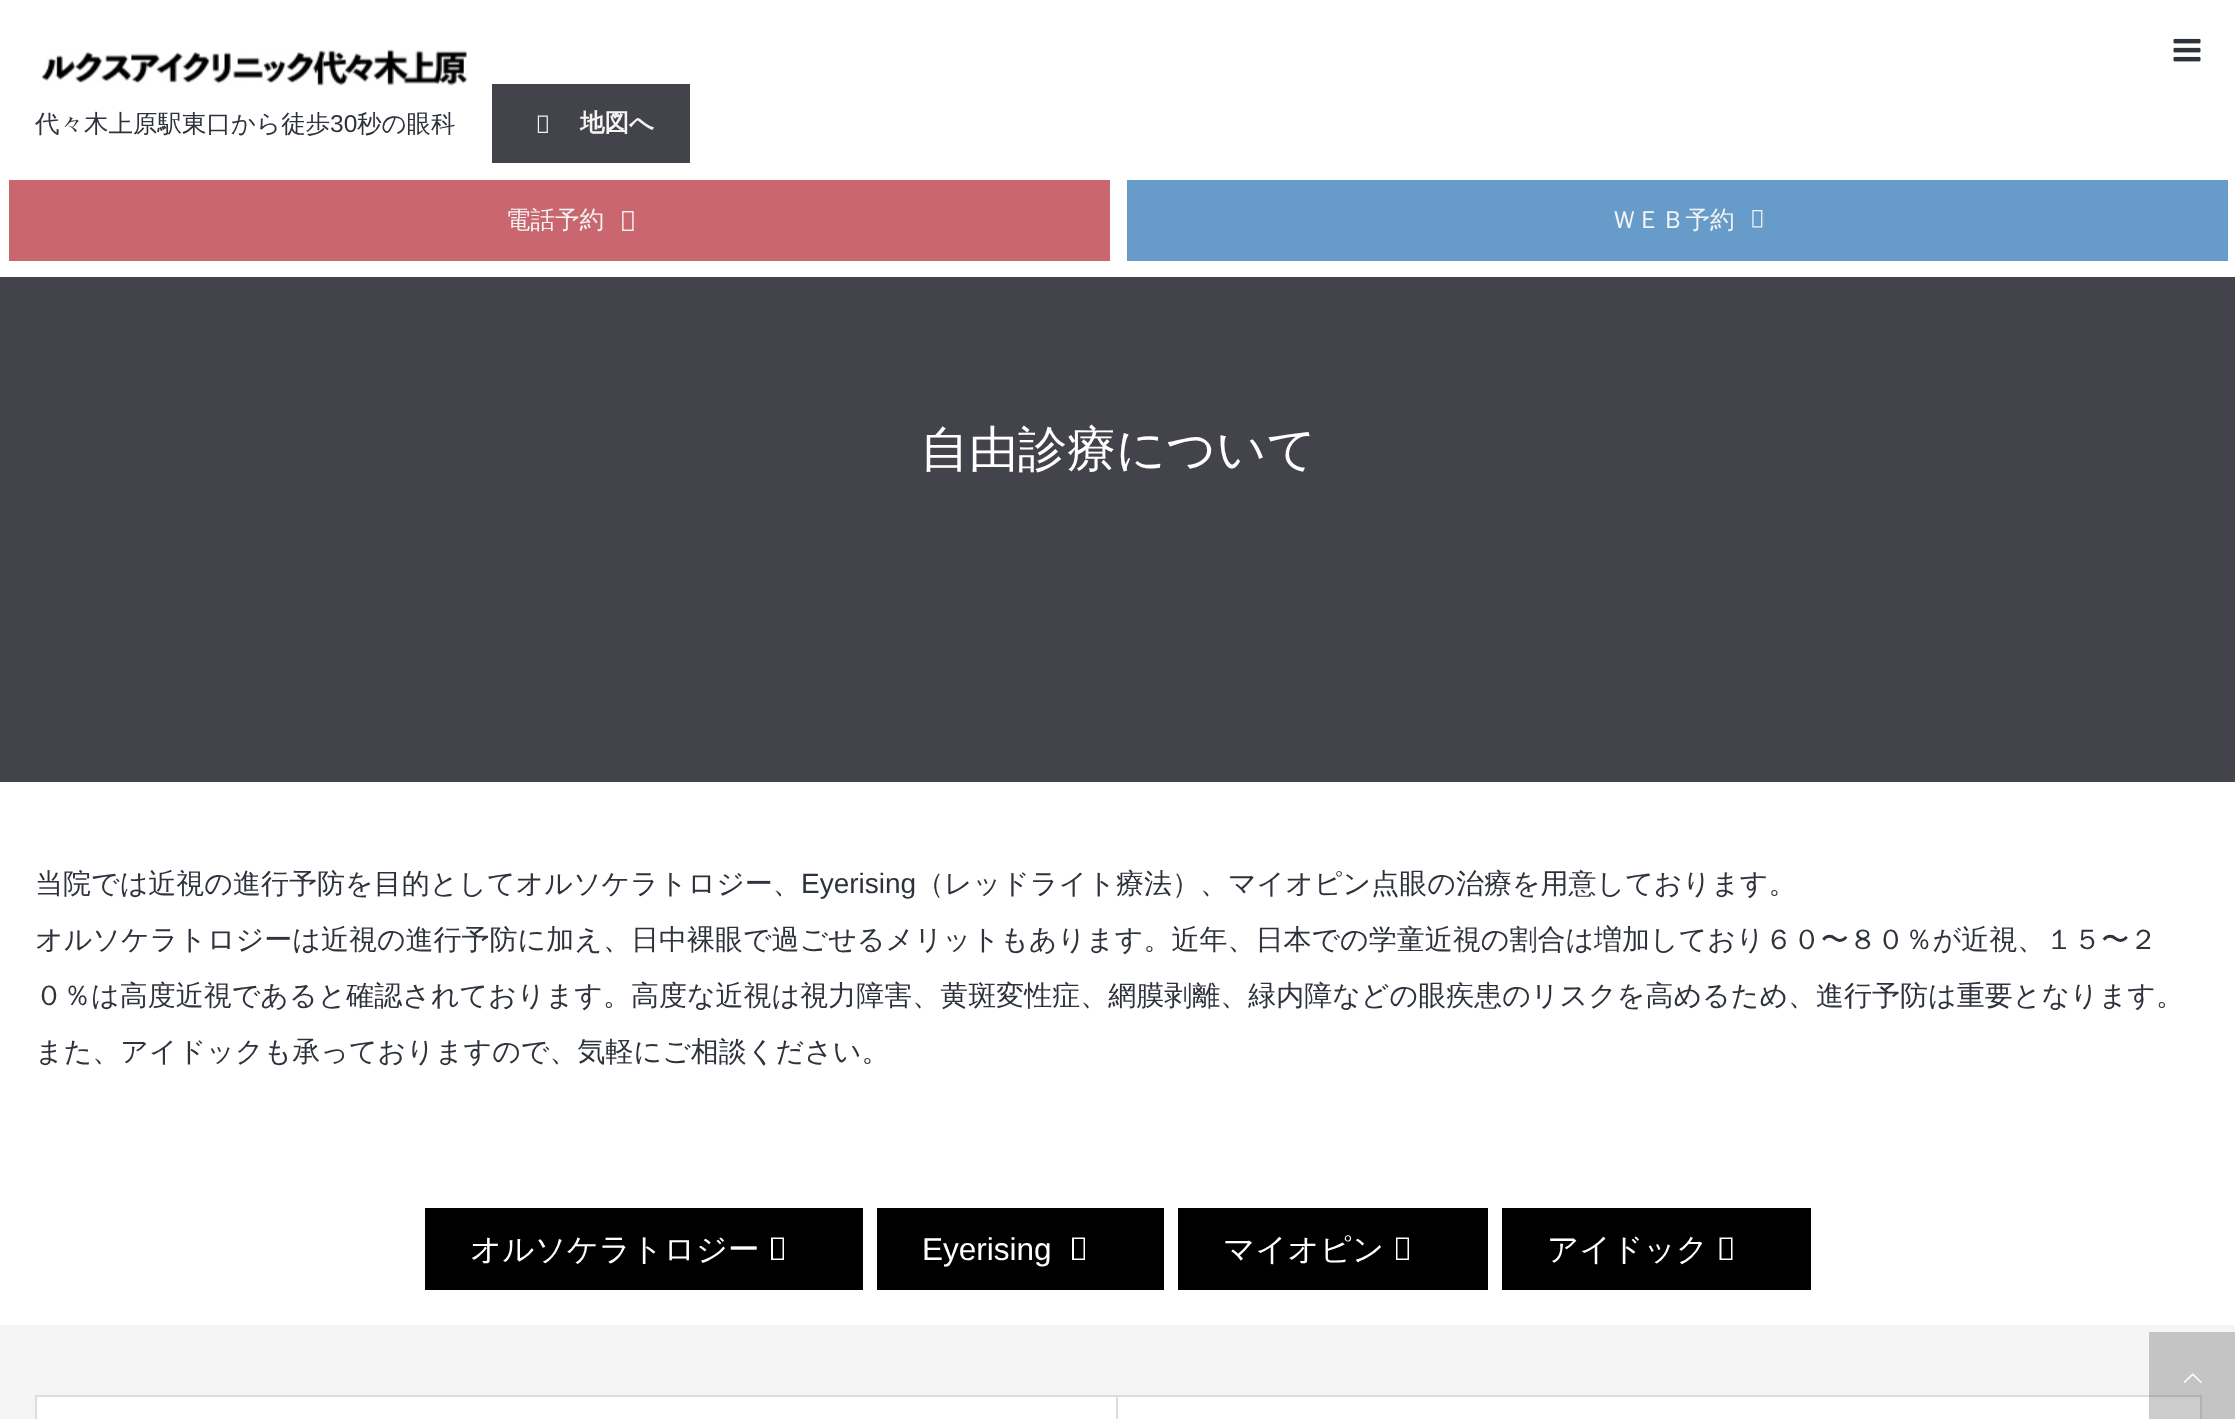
<!DOCTYPE html>
<meta charset="utf-8">
<style>body { margin: 0 } canvas { display: block }</style>
<canvas id="canvas" width="2235" height="1419"></canvas>
<img id="img1" src="img_01.png" hidden>
<img id="img2" src="img_02.png" hidden>
<img id="img3" src="img_03.png" hidden>
<img id="img4" src="img_04.png" hidden>
<img id="img5" src="img_05.png" hidden>
<img id="img6" src="img_06.png" hidden>
<script>
window.onload = function () {
	const canvas = document.getElementById("canvas");
	const ctx = canvas.getContext("2d");
	ctx.miterLimit = 4;
	ctx.fontKerning = "normal";
	function txt(s, x, y) {
		ctx.fillText(s, x, y);
	}
	function fill(x, y, w, h) {
		ctx.fillRect(x, y, w, h);
	}
	function img(id, x, y, w, h) {
		ctx.drawImage(document.getElementById(id), x, y, w, h);
	}

	ctx.fillStyle = "#FFFFFF";
	fill(0, 0, 2235, 1419);
	img("img1", 41, 49, 426, 37);
	img("img2", 2173, 38, 28, 24);
	ctx.fillStyle = "#43434B";
	fill(492, 84, 198, 79);
	img("img3", 537, 115, 11, 18);
	ctx.fillStyle = "#C9666E";
	fill(9, 180, 1101, 81);
	img("img4", 622, 211, 12, 20);
	ctx.fillStyle = "#679BC9";
	fill(1127, 180, 1101, 81);
	img("img5", 1752, 210, 11, 18);
	ctx.fillStyle = "#43434B";
	fill(0, 277, 2235, 505);
	ctx.fillStyle = "#000000";
	fill(425, 1208, 438, 82);
	ctx.fillStyle = "#FFFFFF";
	ctx.beginPath();
	ctx.moveTo(771, 1260);
	ctx.lineTo(771, 1237.5);
	ctx.lineTo(784, 1237.5);
	ctx.lineTo(784, 1260);
	ctx.closePath();
	ctx.moveTo(773, 1258.5);
	ctx.lineTo(782.5, 1258.5);
	ctx.lineTo(782.5, 1239);
	ctx.lineTo(773, 1239);
	ctx.closePath();
	ctx.fill();
	ctx.fillStyle = "#000000";
	fill(877, 1208, 287, 82);
	ctx.fillStyle = "#FFFFFF";
	ctx.beginPath();
	ctx.moveTo(1072, 1260);
	ctx.lineTo(1072, 1237.5);
	ctx.lineTo(1085, 1237.5);
	ctx.lineTo(1085, 1260);
	ctx.closePath();
	ctx.moveTo(1074, 1258.5);
	ctx.lineTo(1083.5, 1258.5);
	ctx.lineTo(1083.5, 1239);
	ctx.lineTo(1074, 1239);
	ctx.closePath();
	ctx.fill();
	ctx.fillStyle = "#000000";
	fill(1178, 1208, 310, 82);
	ctx.fillStyle = "#FFFFFF";
	ctx.beginPath();
	ctx.moveTo(1396, 1260);
	ctx.lineTo(1396, 1237.5);
	ctx.lineTo(1409, 1237.5);
	ctx.lineTo(1409, 1260);
	ctx.closePath();
	ctx.moveTo(1397.5, 1258.5);
	ctx.lineTo(1407.5, 1258.5);
	ctx.lineTo(1407.5, 1239);
	ctx.lineTo(1397.5, 1239);
	ctx.closePath();
	ctx.fill();
	ctx.fillStyle = "#000000";
	fill(1502, 1208, 309, 82);
	ctx.fillStyle = "#FFFFFF";
	ctx.beginPath();
	ctx.moveTo(1719.5, 1260);
	ctx.lineTo(1719.5, 1237.5);
	ctx.lineTo(1732.5, 1237.5);
	ctx.lineTo(1732.5, 1260);
	ctx.closePath();
	ctx.moveTo(1721.5, 1258.5);
	ctx.lineTo(1731, 1258.5);
	ctx.lineTo(1731, 1239);
	ctx.lineTo(1721.5, 1239);
	ctx.closePath();
	ctx.fill();
	ctx.fillStyle = "#F5F5F5";
	fill(0, 1325, 2235, 94);
	ctx.fillStyle = "#C4C4C4";
	fill(2149, 1332, 86, 87);
	ctx.fillStyle = "#FFFFFF";
	ctx.beginPath();
	ctx.rect(36, 1396, 1081, 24);
	ctx.fill();
	ctx.strokeStyle = "#DDDDDD";
	ctx.lineWidth = 2;
	ctx.stroke();
	fill(1118, 1397, 1031, 22);
	ctx.fillStyle = "#CCCCCC";
	fill(2149, 1397, 51, 22);
	ctx.fillStyle = "#DDDDDD";
	fill(1118, 1395, 1031, 2);
	ctx.fillStyle = "#B1B1B1";
	fill(2149, 1395, 53, 2);
	fill(2200, 1395, 2, 24);
	img("img6", 2183, 1373, 19, 10);
	ctx.font = "500 24.5px WenQuanYi Zen Hei";
	ctx.fillStyle = "#2E323B";
	txt("代々木上原駅東口から徒歩", 35, 132);
	ctx.font = "24.5px Liberation Sans";
	txt("30", 330, 132);
	ctx.font = "500 24.5px WenQuanYi Zen Hei";
	txt("秒の眼科", 357, 132);
	ctx.font = "bold 24.5px WenQuanYi Zen Hei";
	ctx.fillStyle = "#F4F4F4";
	txt("地図へ", 580, 131);
	ctx.font = "500 24.5px WenQuanYi Zen Hei";
	txt("電話予約", 506, 228);
	txt("ＷＥＢ予約", 1612, 228);
	ctx.font = "500 49px WenQuanYi Zen Hei";
	ctx.fillStyle = "#FFFFFF";
	txt("自由診療について", 920, 466);
	ctx.font = "500 28px WenQuanYi Zen Hei";
	ctx.fillStyle = "#2E323B";
	txt("当院では近視の進行予防を目的としてオルソケラトロジー、", 35, 893);
	ctx.font = "28px Liberation Sans";
	txt("Eyerising", 801, 893);
	ctx.font = "500 28px WenQuanYi Zen Hei";
	txt("（レッドライト療法）、マイオピン点眼の治療を用意しております。", 916, 893);
	txt("オルソケラトロジーは近視の進行予防に加え、日中裸眼で過ごせるメリットもあります。近年、日本での学童近視の割合は増加しており６０〜８０％が近視、１５〜２", 35, 949);
	txt("０％は高度近視であると確認されております。高度な近視は視力障害、黄斑変性症、網膜剥離、緑内障などの眼疾患のリスクを高めるため、進行予防は重要となります。", 35, 1005);
	txt("また、アイドックも承っておりますので、気軽にご相談ください。", 35, 1061);
	ctx.font = "500 31.5px WenQuanYi Zen Hei";
	ctx.fillStyle = "#FFFFFF";
	txt("オルソケラトロジー", 470, 1260);
	ctx.font = "31.5px Liberation Sans";
	txt("Eyerising", 922, 1260);
	ctx.font = "500 31.5px WenQuanYi Zen Hei";
	txt("マイオピン", 1223, 1260);
	txt("アイドック", 1547, 1260);
};
</script>
